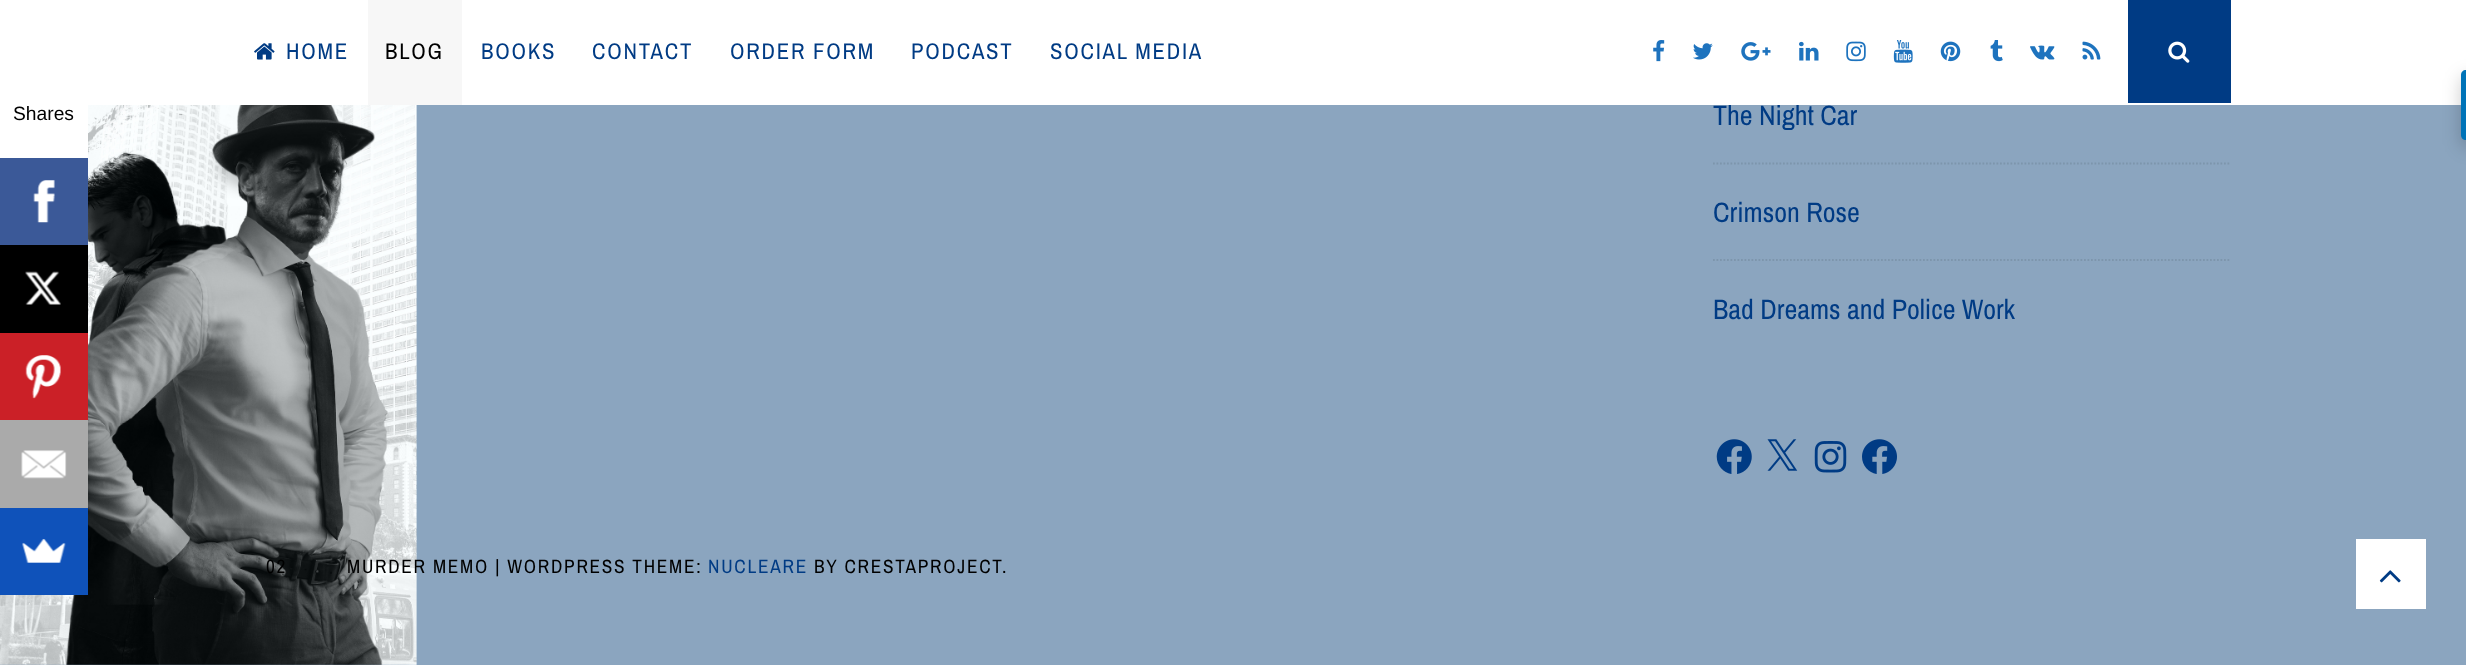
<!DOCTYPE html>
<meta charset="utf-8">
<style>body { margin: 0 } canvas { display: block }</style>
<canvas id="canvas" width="2466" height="665"></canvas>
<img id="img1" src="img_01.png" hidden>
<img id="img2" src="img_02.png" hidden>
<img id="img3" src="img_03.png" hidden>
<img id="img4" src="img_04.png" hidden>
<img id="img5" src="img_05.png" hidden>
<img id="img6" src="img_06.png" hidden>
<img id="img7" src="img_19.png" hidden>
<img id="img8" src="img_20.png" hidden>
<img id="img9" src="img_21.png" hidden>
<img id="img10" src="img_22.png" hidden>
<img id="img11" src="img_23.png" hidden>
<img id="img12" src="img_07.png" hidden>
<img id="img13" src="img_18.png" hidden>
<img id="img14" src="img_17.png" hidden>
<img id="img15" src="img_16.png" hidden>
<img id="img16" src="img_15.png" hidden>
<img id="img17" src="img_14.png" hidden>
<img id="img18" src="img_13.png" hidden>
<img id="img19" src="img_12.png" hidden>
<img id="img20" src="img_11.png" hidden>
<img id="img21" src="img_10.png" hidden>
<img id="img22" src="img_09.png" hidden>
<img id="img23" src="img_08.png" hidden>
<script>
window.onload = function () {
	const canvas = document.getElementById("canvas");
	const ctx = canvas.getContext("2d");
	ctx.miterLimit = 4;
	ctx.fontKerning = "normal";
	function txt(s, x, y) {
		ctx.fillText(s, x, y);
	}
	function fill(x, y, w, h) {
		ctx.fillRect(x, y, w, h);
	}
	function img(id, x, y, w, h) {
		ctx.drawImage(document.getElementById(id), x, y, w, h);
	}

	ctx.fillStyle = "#8BA5BF";
	fill(0, 0, 2466, 665);
	img("img1", 0, 105, 417, 560);
	ctx.fillStyle = "#FFFFFF";
	fill(0, 105, 88, 53);
	ctx.fillStyle = "#3B5998";
	fill(0, 158, 88, 87);
	img("img2", 33, 180, 22, 43);
	ctx.fillStyle = "#000000";
	fill(0, 245, 88, 88);
	img("img3", 25, 271, 36, 34);
	ctx.fillStyle = "#CB2027";
	fill(0, 333, 88, 87);
	img("img4", 25, 355, 36, 44);
	ctx.fillStyle = "#AAAAAA";
	fill(0, 420, 88, 88);
	img("img5", 21, 450, 46, 29);
	ctx.fillStyle = "#0F52BA";
	fill(0, 508, 88, 87);
	img("img6", 22, 539, 44, 24);
	ctx.beginPath();
	ctx.moveTo(1713, 163.5);
	ctx.lineTo(2231, 163.5);
	ctx.strokeStyle = "#7D95AC";
	ctx.lineWidth = 1.8;
	ctx.setLineDash([1.75, 1.75]);
	ctx.stroke();
	ctx.beginPath();
	ctx.moveTo(1713, 260);
	ctx.lineTo(2231, 260);
	ctx.stroke();
	img("img7", 1716, 439, 36, 35);
	img("img8", 1767, 439, 31, 32);
	img("img9", 1814, 441, 33, 32);
	img("img10", 1862, 439, 35, 35);
	ctx.fillStyle = "#FFFFFF";
	fill(2356, 539, 70, 70);
	img("img11", 2379, 570, 22, 13);
	ctx.font = "19.25px Liberation Sans";
	ctx.fillStyle = "#000000";
	txt("Shares", 13, 120);
	ctx.font = "28px Archivo Narrow";
	ctx.fillStyle = "#003B84";
	txt("The Night Car", 1713, 125);
	ctx.fillStyle = "#FFFFFF";
	fill(0, 0, 2466, 105);
	ctx.letterSpacing = "1.75px";
	ctx.font = "22.75px Archivo Narrow";
	ctx.fillStyle = "#003B84";
	txt("SOCIAL MEDIA", 1050, 59);
	txt("PODCAST", 911, 59);
	txt("ORDER FORM", 730, 59);
	txt("CONTACT", 592, 59);
	txt("BOOKS", 481, 59);
	ctx.fillStyle = "#F7F7F7";
	fill(368, 0, 94, 105);
	ctx.fillStyle = "#000000";
	txt("BLOG", 385, 59);
	ctx.fillStyle = "#003B84";
	txt("HOME", 286, 59);
	img("img12", 254, 43, 21, 17);
	fill(2128, 0, 103, 103);
	img("img13", 2168, 41, 22, 22);
	img("img14", 2082, 41, 19, 19);
	img("img15", 2030, 45, 25, 15);
	img("img16", 1990, 40, 13, 22);
	img("img17", 1940, 41, 21, 21);
	img("img18", 1893, 40, 20, 23);
	img("img19", 1846, 41, 20, 21);
	img("img20", 1799, 41, 20, 20);
	img("img21", 1741, 42, 30, 19);
	img("img22", 1693, 43, 20, 17);
	img("img23", 1653, 40, 12, 22);
	ctx.letterSpacing = "0px";
	ctx.font = "28px Archivo Narrow";
	txt("Crimson Rose", 1713, 222);
	txt("Bad Dreams and Police Work", 1713, 319);
	ctx.letterSpacing = "1.75px";
	ctx.font = "19.25px Archivo Narrow";
	ctx.fillStyle = "#000000";
	txt("02", 266, 573);
	txt("MURDER MEMO | WORDPRESS THEME:", 347, 573);
	ctx.fillStyle = "#003B84";
	txt("NUCLEARE", 708, 573);
	ctx.fillStyle = "#000000";
	txt("BY CRESTAPROJECT.", 814, 573);
	ctx.fillStyle = "rgba(0, 0, 0, 0.2)";
	ctx.filter = "blur(9px)";
	ctx.beginPath();
	ctx.roundRect(2461, 77, 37, 70, 5);
	ctx.fill();
	ctx.filter = "none";
	ctx.fillStyle = "#0073B7";
	ctx.beginPath();
	ctx.moveTo(2466, 70);
	ctx.lineTo(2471, 70);
	ctx.lineTo(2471, 140);
	ctx.lineTo(2466, 140);
	ctx.bezierCurveTo(2463, 140, 2461, 138, 2461, 135);
	ctx.lineTo(2461, 75);
	ctx.bezierCurveTo(2461, 72, 2463, 70, 2466, 70);
	ctx.closePath();
	ctx.fill();
};
</script>
